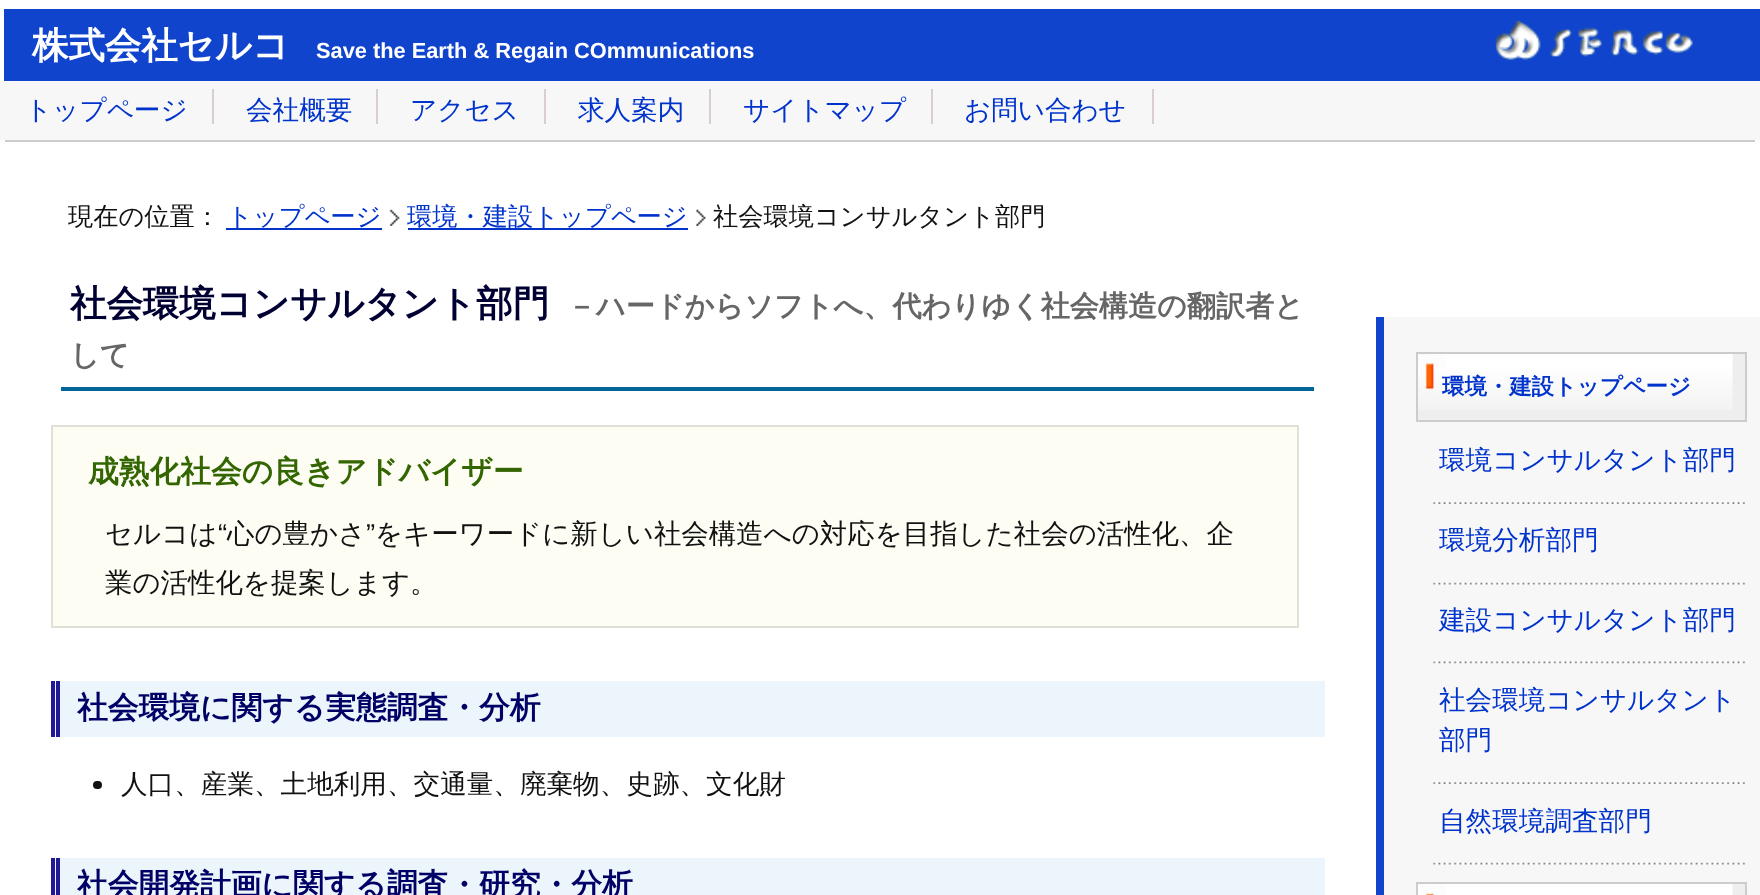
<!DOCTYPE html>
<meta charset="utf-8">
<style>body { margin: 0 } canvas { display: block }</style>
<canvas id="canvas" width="1760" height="895"></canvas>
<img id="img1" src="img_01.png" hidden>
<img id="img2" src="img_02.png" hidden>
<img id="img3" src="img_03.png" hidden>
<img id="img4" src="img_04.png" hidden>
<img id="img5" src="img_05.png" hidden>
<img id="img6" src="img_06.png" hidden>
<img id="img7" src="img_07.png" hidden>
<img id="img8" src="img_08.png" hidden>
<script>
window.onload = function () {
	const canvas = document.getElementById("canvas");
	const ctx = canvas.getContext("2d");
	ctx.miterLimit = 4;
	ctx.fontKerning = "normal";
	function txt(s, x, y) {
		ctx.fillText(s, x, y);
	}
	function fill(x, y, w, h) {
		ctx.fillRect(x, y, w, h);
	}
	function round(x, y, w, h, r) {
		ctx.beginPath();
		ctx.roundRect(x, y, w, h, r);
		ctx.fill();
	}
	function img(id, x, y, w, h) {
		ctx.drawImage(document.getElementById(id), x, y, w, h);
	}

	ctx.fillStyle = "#FFFFFF";
	fill(0, 0, 1760, 895);
	ctx.fillStyle = "#1144CC";
	fill(4, 9, 1756, 72);
	img("img1", 1495, 20, 198, 40);
	ctx.fillStyle = "#F7F7F7";
	fill(0, 81, 1760, 59);
	ctx.fillStyle = "#D8CECE";
	fill(212, 89, 2, 35);
	fill(376, 89, 2, 35);
	fill(544, 89, 2, 35);
	fill(709, 89, 2, 35);
	fill(931, 89, 2, 35);
	fill(1152, 89, 2, 35);
	ctx.fillStyle = "#CCCCCC";
	fill(5, 140, 1750, 2);
	ctx.fillStyle = "#0033CC";
	fill(226, 228, 156, 2);
	img("img2", 389, 209, 11, 17);
	fill(408, 228, 280, 2);
	img("img3", 696, 209, 10, 17);
	ctx.fillStyle = "#006699";
	fill(61, 387, 1253, 4);
	ctx.fillStyle = "#FDFDF4";
	ctx.beginPath();
	ctx.rect(52, 426, 1246, 201);
	ctx.fill();
	ctx.strokeStyle = "#E0E0D4";
	ctx.lineWidth = 2;
	ctx.stroke();
	ctx.fillStyle = "#EBF5FB";
	fill(55, 681, 1270, 56);
	ctx.fillStyle = "#211897";
	fill(51, 681, 4, 56);
	fill(56, 681, 4, 56);
	ctx.fillStyle = "#111111";
	round(93, 781, 9, 8, 4);
	ctx.fillStyle = "#EBF5FB";
	fill(55, 858, 1270, 37);
	ctx.fillStyle = "#211897";
	fill(51, 858, 4, 37);
	fill(56, 858, 4, 37);
	ctx.fillStyle = "#F7F7F7";
	fill(1384, 317, 376, 578);
	ctx.fillStyle = "#1144CC";
	fill(1376, 317, 8, 578);
	ctx.fillStyle = "#EEEEEE";
	fill(1418, 354, 327, 66);
	img("img4", 1418, 354, 315, 56);
	ctx.strokeStyle = "#CCCCCC";
	ctx.strokeRect(1417, 353, 329, 68);
	img("img5", 1433, 502, 314, 2);
	img("img6", 1433, 582, 314, 3);
	img("img7", 1433, 661, 314, 3);
	img("img5", 1433, 782, 314, 2);
	img("img6", 1433, 862, 314, 3);
	fill(1732, 884, 13, 11);
	img("img8", 1418, 884, 315, 11);
	ctx.strokeRect(1417, 883, 329, 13);
	ctx.font = "bold 36.4px WenQuanYi Zen Hei";
	ctx.fillStyle = "#FFFFFF";
	txt("株式会社セルコ", 32, 58);
	ctx.font = "bold 21.8px Liberation Sans";
	txt("Save the Earth & Regain COmmunications", 316, 58);
	ctx.font = "500 26.6px WenQuanYi Zen Hei";
	ctx.fillStyle = "#0033CC";
	txt("トップページ", 25, 119);
	txt("会社概要", 246, 119);
	txt("アクセス", 410, 119);
	txt("求人案内", 578, 119);
	txt("サイトマップ", 743, 119);
	txt("お問い合わせ", 964, 119);
	ctx.font = "500 25.25px WenQuanYi Zen Hei";
	ctx.fillStyle = "#111111";
	txt("現在の位置：", 68, 225);
	ctx.fillStyle = "#0033CC";
	txt("トップページ", 227, 225);
	txt("環境・建設トップページ", 407, 225);
	ctx.fillStyle = "#111111";
	txt("社会環境コンサルタント部門", 713, 225);
	ctx.font = "bold 36.4px WenQuanYi Zen Hei";
	ctx.fillStyle = "#000033";
	txt("社会環境コンサルタント部門", 70, 316);
	ctx.font = "bold 29.1px WenQuanYi Zen Hei";
	ctx.fillStyle = "#666666";
	txt("－ハードからソフトへ、代わりゆく社会構造の翻訳者と", 567, 316);
	txt("して", 70, 365);
	ctx.font = "bold 30.75px WenQuanYi Zen Hei";
	ctx.fillStyle = "#336600";
	txt("成熟化社会の良きアドバイザー", 88, 482);
	ctx.font = "500 27.45px WenQuanYi Zen Hei";
	ctx.fillStyle = "#111111";
	txt("セルコは", 105, 543);
	ctx.font = "27.45px Liberation Sans";
	txt("“", 218, 543);
	ctx.font = "500 27.45px WenQuanYi Zen Hei";
	txt("心の豊かさ", 227, 543);
	ctx.font = "27.45px Liberation Sans";
	txt("”", 366, 543);
	ctx.font = "500 27.45px WenQuanYi Zen Hei";
	txt("をキーワードに新しい社会構造への対応を目指した社会の活性化、企", 375, 543);
	txt("業の活性化を提案します。", 105, 592);
	ctx.font = "bold 30.75px WenQuanYi Zen Hei";
	ctx.fillStyle = "#000066";
	txt("社会環境に関する実態調査・分析", 77, 718);
	ctx.font = "500 26.6px WenQuanYi Zen Hei";
	ctx.fillStyle = "#111111";
	txt("人口、産業、土地利用、交通量、廃棄物、史跡、文化財", 121, 793);
	ctx.font = "bold 30.75px WenQuanYi Zen Hei";
	ctx.fillStyle = "#000066";
	txt("社会開発計画に関する調査・研究・分析", 77, 895);
	ctx.font = "bold 22.4px WenQuanYi Zen Hei";
	ctx.fillStyle = "#0033CC";
	txt("環境・建設トップページ", 1442, 394);
	ctx.font = "500 26.6px WenQuanYi Zen Hei";
	txt("環境コンサルタント部門", 1439, 469);
	txt("環境分析部門", 1439, 549);
	txt("建設コンサルタント部門", 1439, 629);
	txt("社会環境コンサルタント", 1439, 709);
	txt("部門", 1439, 749);
	txt("自然環境調査部門", 1439, 830);
};
</script>
